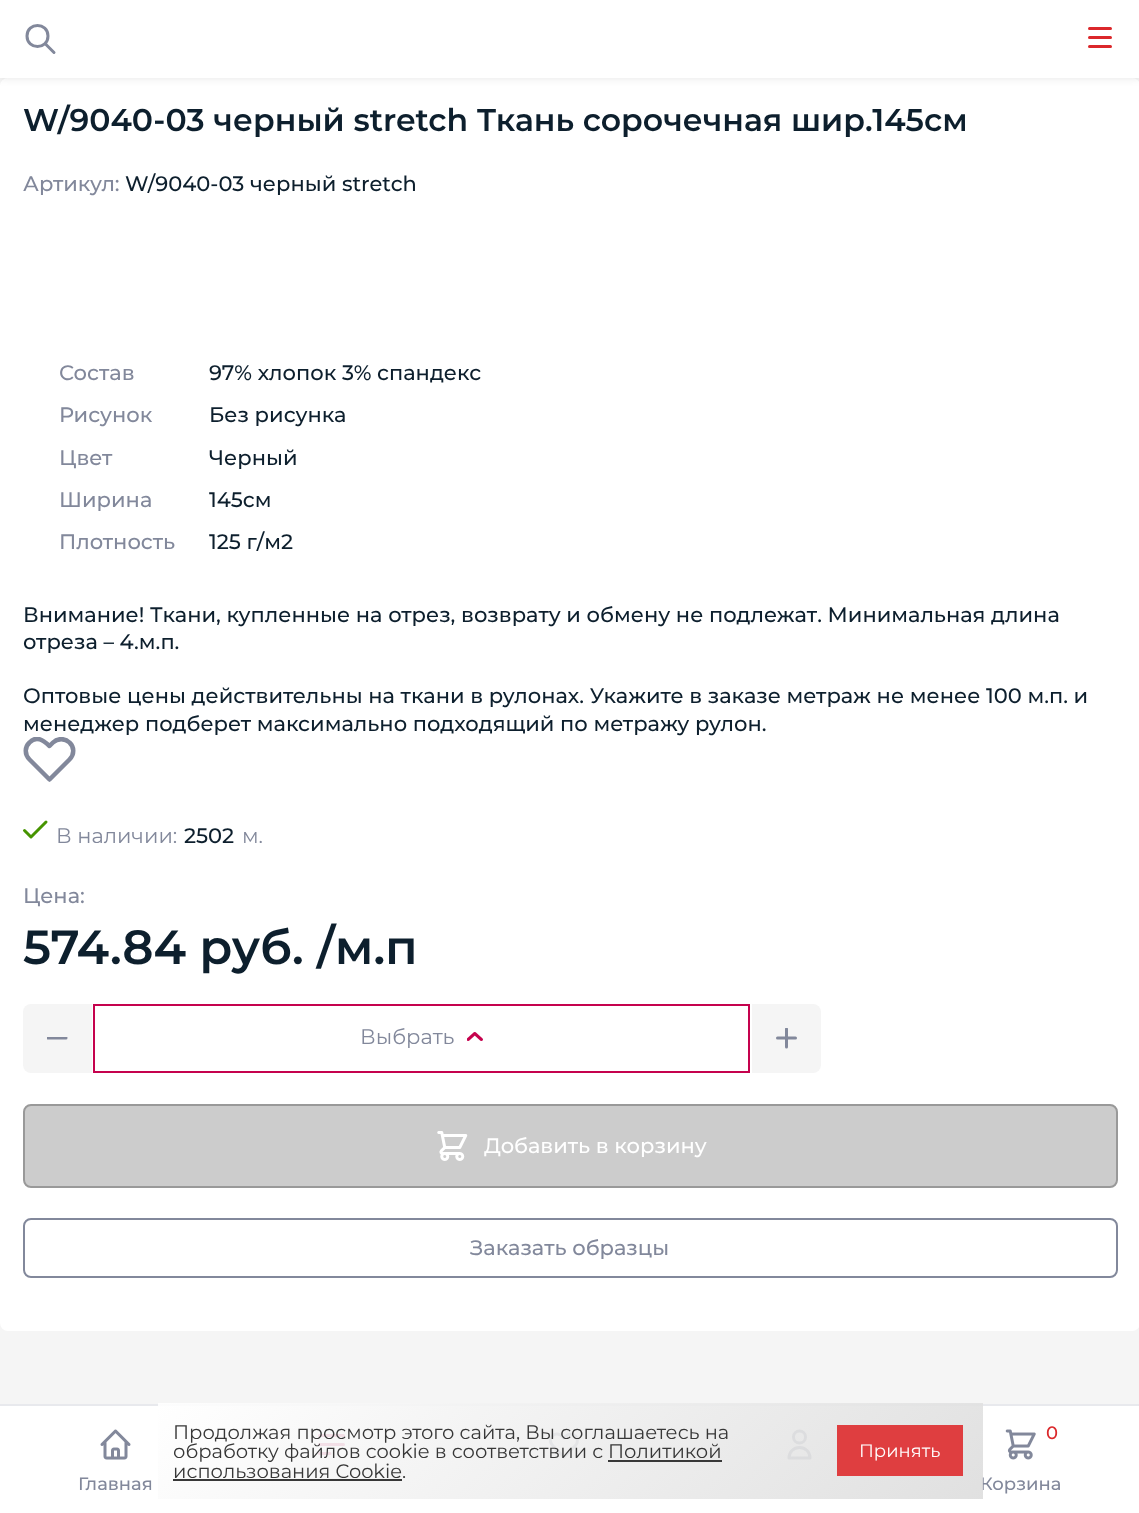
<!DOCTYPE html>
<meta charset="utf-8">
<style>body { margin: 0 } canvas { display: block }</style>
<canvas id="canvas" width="1139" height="1513"></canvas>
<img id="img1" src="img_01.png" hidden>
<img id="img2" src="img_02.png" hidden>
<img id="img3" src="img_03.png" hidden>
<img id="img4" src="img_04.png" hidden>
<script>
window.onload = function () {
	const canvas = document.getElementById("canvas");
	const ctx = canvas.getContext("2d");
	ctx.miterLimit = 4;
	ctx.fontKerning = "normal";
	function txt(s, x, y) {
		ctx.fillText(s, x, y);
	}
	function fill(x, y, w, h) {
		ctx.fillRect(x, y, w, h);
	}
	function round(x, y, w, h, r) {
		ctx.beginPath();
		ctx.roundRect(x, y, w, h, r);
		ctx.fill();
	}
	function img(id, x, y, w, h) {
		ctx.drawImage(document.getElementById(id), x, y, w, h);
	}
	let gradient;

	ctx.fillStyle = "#F5F5F5";
	fill(0, 0, 1139, 1513);
	ctx.fillStyle = "#FFFFFF";
	round(0, 78, 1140, 1253, 8);
	ctx.fillStyle = "rgba(0, 0, 0, 0.1)";
	ctx.filter = "blur(4px)";
	ctx.beginPath();
	ctx.rect(0, 0, 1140, 78);
	ctx.fill();
	ctx.filter = "none";
	ctx.fillStyle = "#FFFFFF";
	fill(0, 0, 1139, 78);
	ctx.beginPath();
	ctx.moveTo(54, 52.5);
	ctx.lineTo(45, 43.5);
	ctx.moveTo(48, 36);
	ctx.bezierCurveTo(48, 50, 27, 50, 27, 36);
	ctx.bezierCurveTo(27, 22, 48, 22, 48, 36);
	ctx.closePath();
	ctx.strokeStyle = "#82889B";
	ctx.lineWidth = 3;
	ctx.lineCap = "round";
	ctx.lineJoin = "round";
	ctx.stroke();
	ctx.fillStyle = "#DB282B";
	round(1088, 27, 24, 3, 1.5);
	round(1088, 36, 24, 3, 1.5);
	round(1088, 45, 24, 3, 1.5);
	ctx.save();
	ctx.beginPath();
	ctx.rect(23, 737, 54, 46);
	ctx.clip();
	ctx.beginPath();
	ctx.moveTo(29.5, 742.5);
	ctx.bezierCurveTo(24.5, 747, 24.5, 754.5, 29.5, 759.5);
	ctx.lineTo(49.5, 779.5);
	ctx.lineTo(69.5, 759.5);
	ctx.bezierCurveTo(74.5, 754.5, 74.5, 747, 69.5, 742.5);
	ctx.bezierCurveTo(65, 738, 57.5, 738, 53, 742.5);
	ctx.lineTo(49.5, 746);
	ctx.bezierCurveTo(43.5, 740.5, 36.5, 735, 29.5, 742.5);
	ctx.closePath();
	ctx.lineWidth = 4.5;
	ctx.stroke();
	ctx.restore();
	ctx.beginPath();
	ctx.moveTo(24.5, 830.5);
	ctx.lineTo(31, 837);
	ctx.moveTo(31, 837);
	ctx.lineTo(46, 822);
	ctx.strokeStyle = "#469400";
	ctx.lineJoin = "miter";
	ctx.stroke();
	ctx.strokeStyle = "#C5024D";
	ctx.lineWidth = 2;
	ctx.strokeRect(94, 1005, 655, 67);
	ctx.fillStyle = "#F5F5F5";
	ctx.beginPath();
	ctx.roundRect(23, 1004, 69, 69, [8, 0, 0, 8]);
	ctx.fill();
	ctx.save();
	ctx.beginPath();
	ctx.rect(47, 1037, 21, 3);
	ctx.clip();
	ctx.beginPath();
	ctx.moveTo(66, 1038);
	ctx.lineTo(48, 1038);
	ctx.strokeStyle = "#82889B";
	ctx.lineWidth = 3;
	ctx.lineJoin = "round";
	ctx.stroke();
	ctx.restore();
	img("img1", 467, 1032, 16, 9);
	ctx.beginPath();
	ctx.roundRect(752, 1004, 69, 69, [0, 8, 8, 0]);
	ctx.fill();
	ctx.save();
	ctx.beginPath();
	ctx.rect(776, 1028, 22, 21);
	ctx.clip();
	ctx.beginPath();
	ctx.moveTo(786.5, 1029);
	ctx.lineTo(786.5, 1038);
	ctx.moveTo(786.5, 1038);
	ctx.lineTo(786.5, 1047);
	ctx.moveTo(786.5, 1038);
	ctx.lineTo(795.5, 1038);
	ctx.moveTo(786.5, 1038);
	ctx.lineTo(777.5, 1038);
	ctx.strokeStyle = "#82889B";
	ctx.lineWidth = 3;
	ctx.lineJoin = "round";
	ctx.stroke();
	ctx.restore();
	ctx.fillStyle = "#CCCCCC";
	ctx.beginPath();
	ctx.roundRect(24, 1105, 1093, 82, 7);
	ctx.fill();
	ctx.strokeStyle = "#999999";
	ctx.stroke();
	img("img2", 437, 1131, 31, 30);
	ctx.beginPath();
	ctx.roundRect(24, 1219, 1093, 58, 7);
	ctx.strokeStyle = "#82889B";
	ctx.stroke();
	ctx.fillStyle = "#FFFFFF";
	fill(0, 1406, 1139, 107);
	ctx.fillStyle = "#E8E9ED";
	fill(0, 1404, 1139, 2);
	ctx.beginPath();
	ctx.moveTo(319.5, 1435.5);
	ctx.lineTo(343.5, 1435.5);
	ctx.moveTo(319.5, 1444.5);
	ctx.lineTo(343.5, 1444.5);
	ctx.moveTo(319.5, 1453.5);
	ctx.lineTo(330, 1453.5);
	ctx.strokeStyle = "#C5024D";
	ctx.lineWidth = 3;
	ctx.lineJoin = "round";
	ctx.stroke();
	ctx.beginPath();
	ctx.moveTo(552.5, 1436);
	ctx.bezierCurveTo(547.5, 1441, 552.5, 1446, 556.5, 1449.5);
	ctx.lineTo(564, 1457);
	ctx.lineTo(575.5, 1445.5);
	ctx.bezierCurveTo(578, 1443, 578, 1438.5, 575.5, 1436);
	ctx.bezierCurveTo(573, 1433.5, 568.5, 1433.5, 566, 1436);
	ctx.lineTo(564, 1438);
	ctx.bezierCurveTo(560.5, 1434.5, 556.5, 1432, 552.5, 1436);
	ctx.closePath();
	ctx.strokeStyle = "#82889B";
	ctx.stroke();
	ctx.beginPath();
	ctx.moveTo(805.5, 1437);
	ctx.bezierCurveTo(805.5, 1445, 793.5, 1445, 793.5, 1437);
	ctx.bezierCurveTo(793.5, 1429, 805.5, 1429, 805.5, 1437);
	ctx.closePath();
	ctx.moveTo(799.5, 1447.5);
	ctx.bezierCurveTo(793.5, 1447.5, 789, 1452, 789, 1458);
	ctx.lineTo(810, 1458);
	ctx.bezierCurveTo(810, 1452, 805.5, 1447.5, 799.5, 1447.5);
	ctx.closePath();
	ctx.stroke();
	img("img3", 1005, 1429, 31, 31);
	img("img4", 100, 1429, 31, 31);
	ctx.font = "600 31.5px Montserrat";
	ctx.fillStyle = "#0D1F2D";
	txt("W/9040-03 черный stretch Ткань сорочечная шир.145см", 23, 131);
	ctx.font = "500 21px Montserrat";
	ctx.fillStyle = "#82889B";
	txt("Артикул:", 23, 191);
	ctx.fillStyle = "#0D1F2D";
	txt("W/9040-03 черный stretch", 125, 191);
	ctx.fillStyle = "#82889B";
	txt("Состав", 59, 380);
	ctx.fillStyle = "#0D1F2D";
	txt("97% хлопок 3% спандекс", 209, 380);
	ctx.fillStyle = "#82889B";
	txt("Рисунок", 59, 422);
	ctx.fillStyle = "#0D1F2D";
	txt("Без рисунка", 209, 422);
	ctx.fillStyle = "#82889B";
	txt("Цвет", 59, 465);
	ctx.fillStyle = "#0D1F2D";
	txt("Черный", 209, 465);
	ctx.fillStyle = "#82889B";
	txt("Ширина", 59, 507);
	ctx.fillStyle = "#0D1F2D";
	txt("145см", 209, 507);
	ctx.fillStyle = "#82889B";
	txt("Плотность", 59, 549);
	ctx.fillStyle = "#0D1F2D";
	txt("125 г/м2", 209, 549);
	txt("Внимание! Ткани, купленные на отрез, возврату и обмену не подлежат. Минимальная длина", 23, 622);
	txt("отреза – 4.м.п.", 23, 649);
	txt("Оптовые цены действительны на ткани в рулонах. Укажите в заказе метраж не менее 100 м.п. и", 23, 703);
	txt("менеджер подберет максимально подходящий по метражу рулон.", 23, 731);
	ctx.font = "21px Montserrat";
	ctx.fillStyle = "#82889B";
	txt("В наличии:", 56, 843);
	ctx.font = "500 21px Montserrat";
	ctx.fillStyle = "#0D1F2D";
	txt("2502", 184, 843);
	ctx.font = "21px Montserrat";
	ctx.fillStyle = "#82889B";
	txt("м.", 242, 843);
	ctx.font = "500 21px Montserrat";
	txt("Цена:", 23, 903);
	ctx.font = "600 48px Montserrat";
	ctx.fillStyle = "#0D1F2D";
	txt("574.84 руб. /м.п", 23, 964);
	ctx.font = "21px Montserrat";
	ctx.fillStyle = "#82889B";
	txt("Выбрать", 360, 1044);
	ctx.font = "500 21px Montserrat";
	ctx.fillStyle = "#FFFFFF";
	txt("Добавить в корзину", 484, 1153);
	ctx.fillStyle = "#82889B";
	txt("Заказать образцы", 470, 1255);
	ctx.font = "500 18px Montserrat";
	ctx.fillStyle = "#DB282B";
	txt("0", 1046, 1439);
	ctx.fillStyle = "#82889B";
	txt("Корзина", 980, 1490);
	txt("Главная", 78, 1490);
	gradient = ctx.createLinearGradient(354, 1220, 786, 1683);
	gradient.addColorStop(0, "rgba(255, 255, 255, 0.9)");
	gradient.addColorStop(1, "rgba(221, 221, 221, 0.9)");
	ctx.fillStyle = gradient;
	fill(158, 1403, 825, 96);
	ctx.font = "19.5px Montserrat";
	ctx.fillStyle = "#373737";
	txt("Продолжая просмотр этого сайта, Вы соглашаетесь на", 173, 1439);
	txt("обработку файлов cookie в соответствии с", 173, 1458);
	txt("Политикой", 608, 1458);
	ctx.fillStyle = "#383838";
	fill(608, 1460, 114, 2);
	ctx.fillStyle = "#373737";
	txt("использования Cookie", 173, 1478);
	ctx.fillStyle = "rgba(34, 34, 34, 0.9)";
	fill(173, 1479, 229, 2);
	ctx.fillStyle = "#373737";
	txt(".", 402, 1478);
	ctx.fillStyle = "#DF3E40";
	fill(837, 1425, 126, 51);
	ctx.font = "18px Montserrat";
	ctx.fillStyle = "#FFFFFF";
	txt("Принять", 859, 1457);
};
</script>
